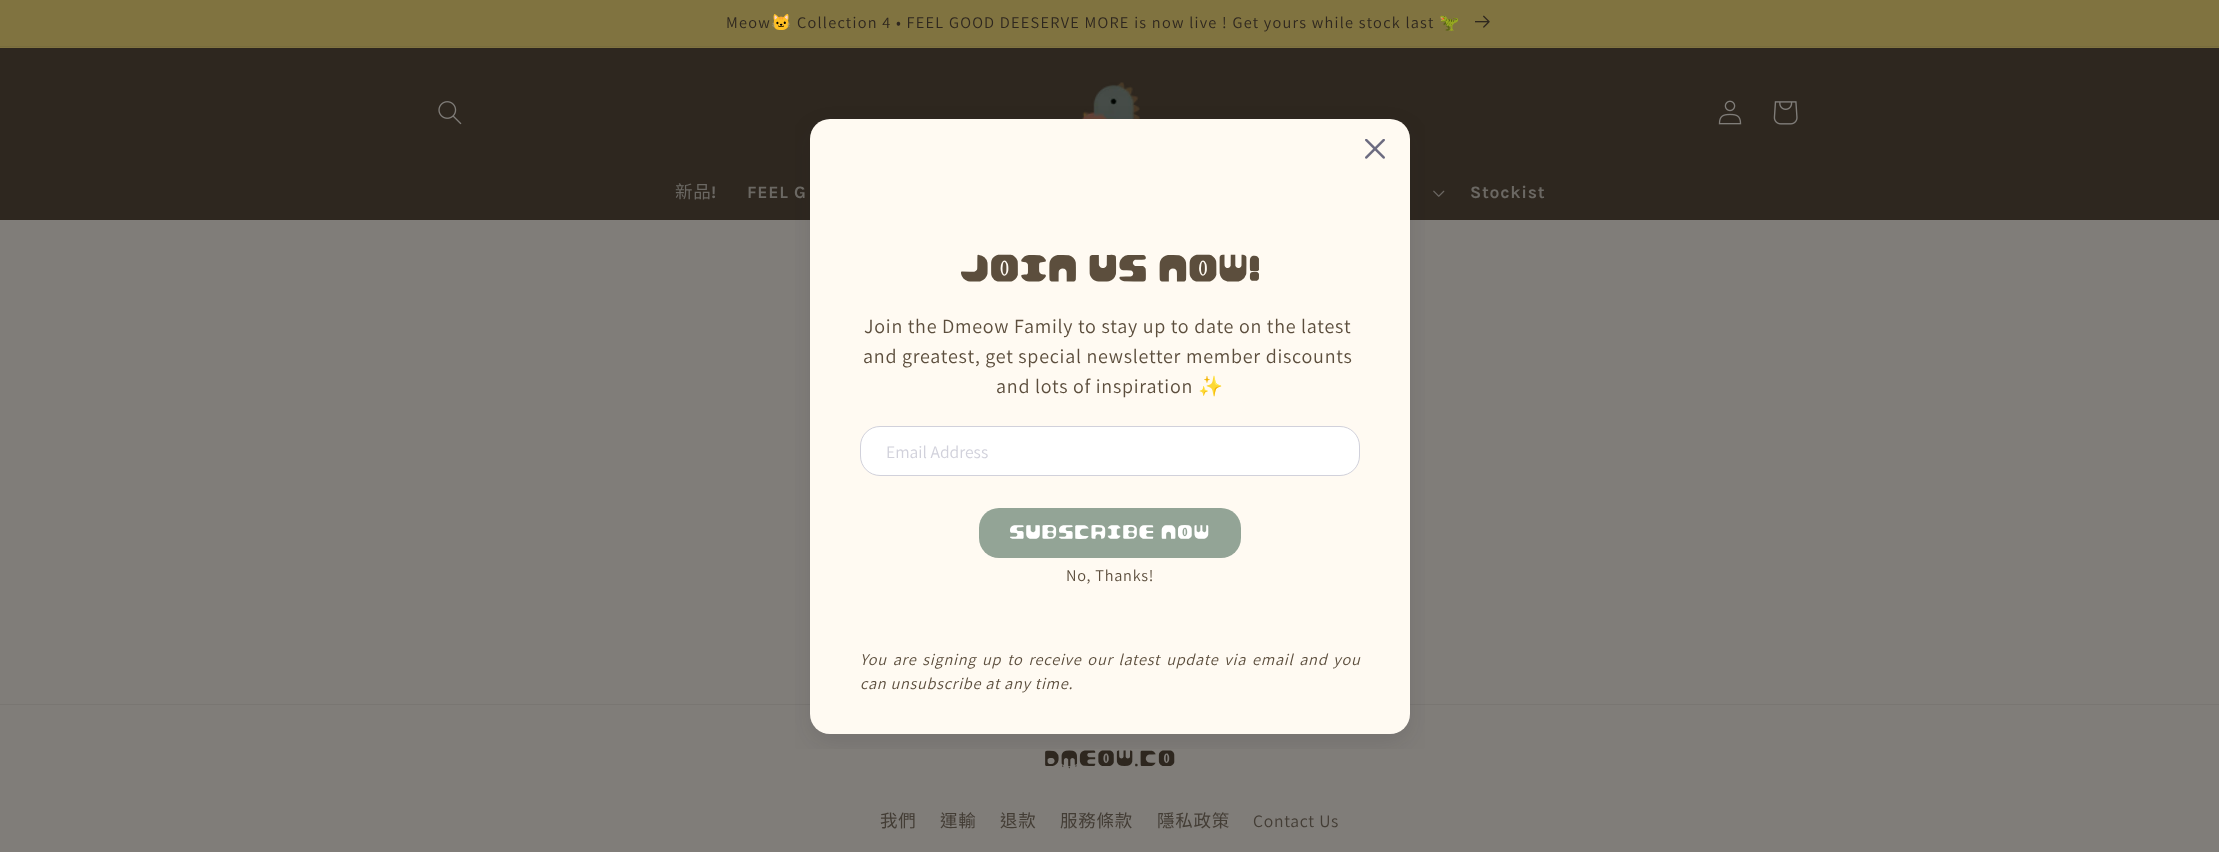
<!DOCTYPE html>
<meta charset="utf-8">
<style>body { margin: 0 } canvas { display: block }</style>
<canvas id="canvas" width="2219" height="852"></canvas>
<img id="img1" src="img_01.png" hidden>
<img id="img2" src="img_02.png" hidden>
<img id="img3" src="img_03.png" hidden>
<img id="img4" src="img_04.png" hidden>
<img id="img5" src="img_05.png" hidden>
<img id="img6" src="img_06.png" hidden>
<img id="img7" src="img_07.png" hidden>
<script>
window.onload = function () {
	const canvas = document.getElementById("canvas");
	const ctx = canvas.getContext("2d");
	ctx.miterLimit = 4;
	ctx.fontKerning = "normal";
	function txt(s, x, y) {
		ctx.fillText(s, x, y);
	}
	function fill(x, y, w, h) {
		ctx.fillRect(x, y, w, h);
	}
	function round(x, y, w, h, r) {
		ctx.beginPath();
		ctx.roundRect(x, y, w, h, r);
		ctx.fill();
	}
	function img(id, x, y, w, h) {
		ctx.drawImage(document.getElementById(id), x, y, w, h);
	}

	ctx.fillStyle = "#807D79";
	fill(0, 0, 2219, 852);
	ctx.fillStyle = "#807340";
	fill(0, 0, 2219, 48);
	ctx.fillStyle = "#796D3E";
	fill(0, 46, 2219, 1);
	img("img1", 1475, 15, 15, 13);
	ctx.fillStyle = "#2E271F";
	fill(0, 48, 2219, 172);
	img("img2", 438, 101, 24, 24);
	img("img3", 1081, 82, 59, 37);
	img("img4", 1718, 100, 24, 25);
	img("img5", 1773, 101, 25, 24);
	img("img6", 1433, 190, 12, 7);
	ctx.fillStyle = "#797672";
	fill(0, 704, 2219, 1);
	ctx.save();
	ctx.beginPath();
	ctx.rect(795, 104, 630, 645);
	ctx.clip();
	ctx.fillStyle = "rgba(18, 17, 39, 0.1)";
	ctx.filter = "blur(12.5px)";
	ctx.beginPath();
	ctx.roundRect(810, 129, 600, 615, 20);
	ctx.fill();
	ctx.filter = "none";
	ctx.restore();
	ctx.fillStyle = "#FFFAF2";
	round(810, 119, 600, 615, 20);
	img("img7", 1365, 139, 20, 20);
	ctx.fillStyle = "#FFFFFF";
	ctx.beginPath();
	ctx.roundRect(860.5, 426.5, 499, 49, 19.5);
	ctx.fill();
	ctx.strokeStyle = "#D1D1DB";
	ctx.stroke();
	ctx.fillStyle = "#93A496";
	round(979, 508, 262, 50, 20);
	ctx.letterSpacing = "1.25px";
	ctx.font = "16.25px Assistant";
	ctx.fillStyle = "#2E271F";
	txt("Meow", 726, 28);
	ctx.font = "16.25px Noto Color Emoji";
	txt("🐱", 771, 28);
	ctx.font = "16.25px Assistant";
	txt("Collection 4 • FEEL GOOD DEESERVE MORE is now live ! Get yours while stock last", 797, 28);
	ctx.font = "16.25px Noto Color Emoji";
	txt("🦖", 1439, 28);
	ctx.letterSpacing = "0.75px";
	ctx.font = "17.5px Noto Sans CJK TC";
	ctx.fillStyle = "#6B6863";
	txt("新品", 675, 198);
	ctx.font = "bold 17.5px Karla";
	txt("!", 711, 198);
	txt("FEEL G", 747, 198);
	txt("Stockist", 1470, 198);
	ctx.font = "bold 37.5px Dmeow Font";
	ctx.fillStyle = "#5C4E3D";
	txt("JOIN US NOW!", 959, 280);
	ctx.font = "20px Assistant";
	txt("Join the Dmeow Family to stay up to date on the latest", 864, 333);
	txt("and greatest, get special newsletter member discounts", 863, 363);
	txt("and lots of inspiration", 996, 393);
	ctx.font = "20px Noto Color Emoji";
	txt("✨", 1198, 393);
	ctx.letterSpacing = "0px";
	ctx.font = "17.5px Assistant";
	ctx.fillStyle = "#D1D1DB";
	txt("Email Address", 886, 458);
	ctx.letterSpacing = "0.75px";
	ctx.font = "20px Dmeow Font";
	ctx.fillStyle = "#FFFFFF";
	txt("Subscribe Now", 1009, 538);
	ctx.font = "16.25px Assistant";
	ctx.fillStyle = "#5C4E3D";
	txt("No, Thanks!", 1066, 581);
	ctx.wordSpacing = "1.9px";
	ctx.font = "italic 16.25px Assistant";
	txt("You are signing up to receive our latest update via email and you", 860, 665);
	ctx.wordSpacing = "0px";
	txt("can unsubscribe at any time.", 860, 689);
	ctx.font = "22.5px Dmeow Font";
	ctx.fillStyle = "#2E271F";
	txt("Dmeow.co", 1044, 765);
	ctx.font = "17.5px Noto Sans CJK TC";
	ctx.fillStyle = "#433D35";
	txt("我們", 880, 827);
	txt("運輸", 940, 827);
	txt("退款", 1000, 827);
	txt("服務條款", 1060, 827);
	txt("隱私政策", 1157, 827);
	ctx.font = "17.5px Assistant";
	txt("Contact Us", 1253, 827);
};
</script>
